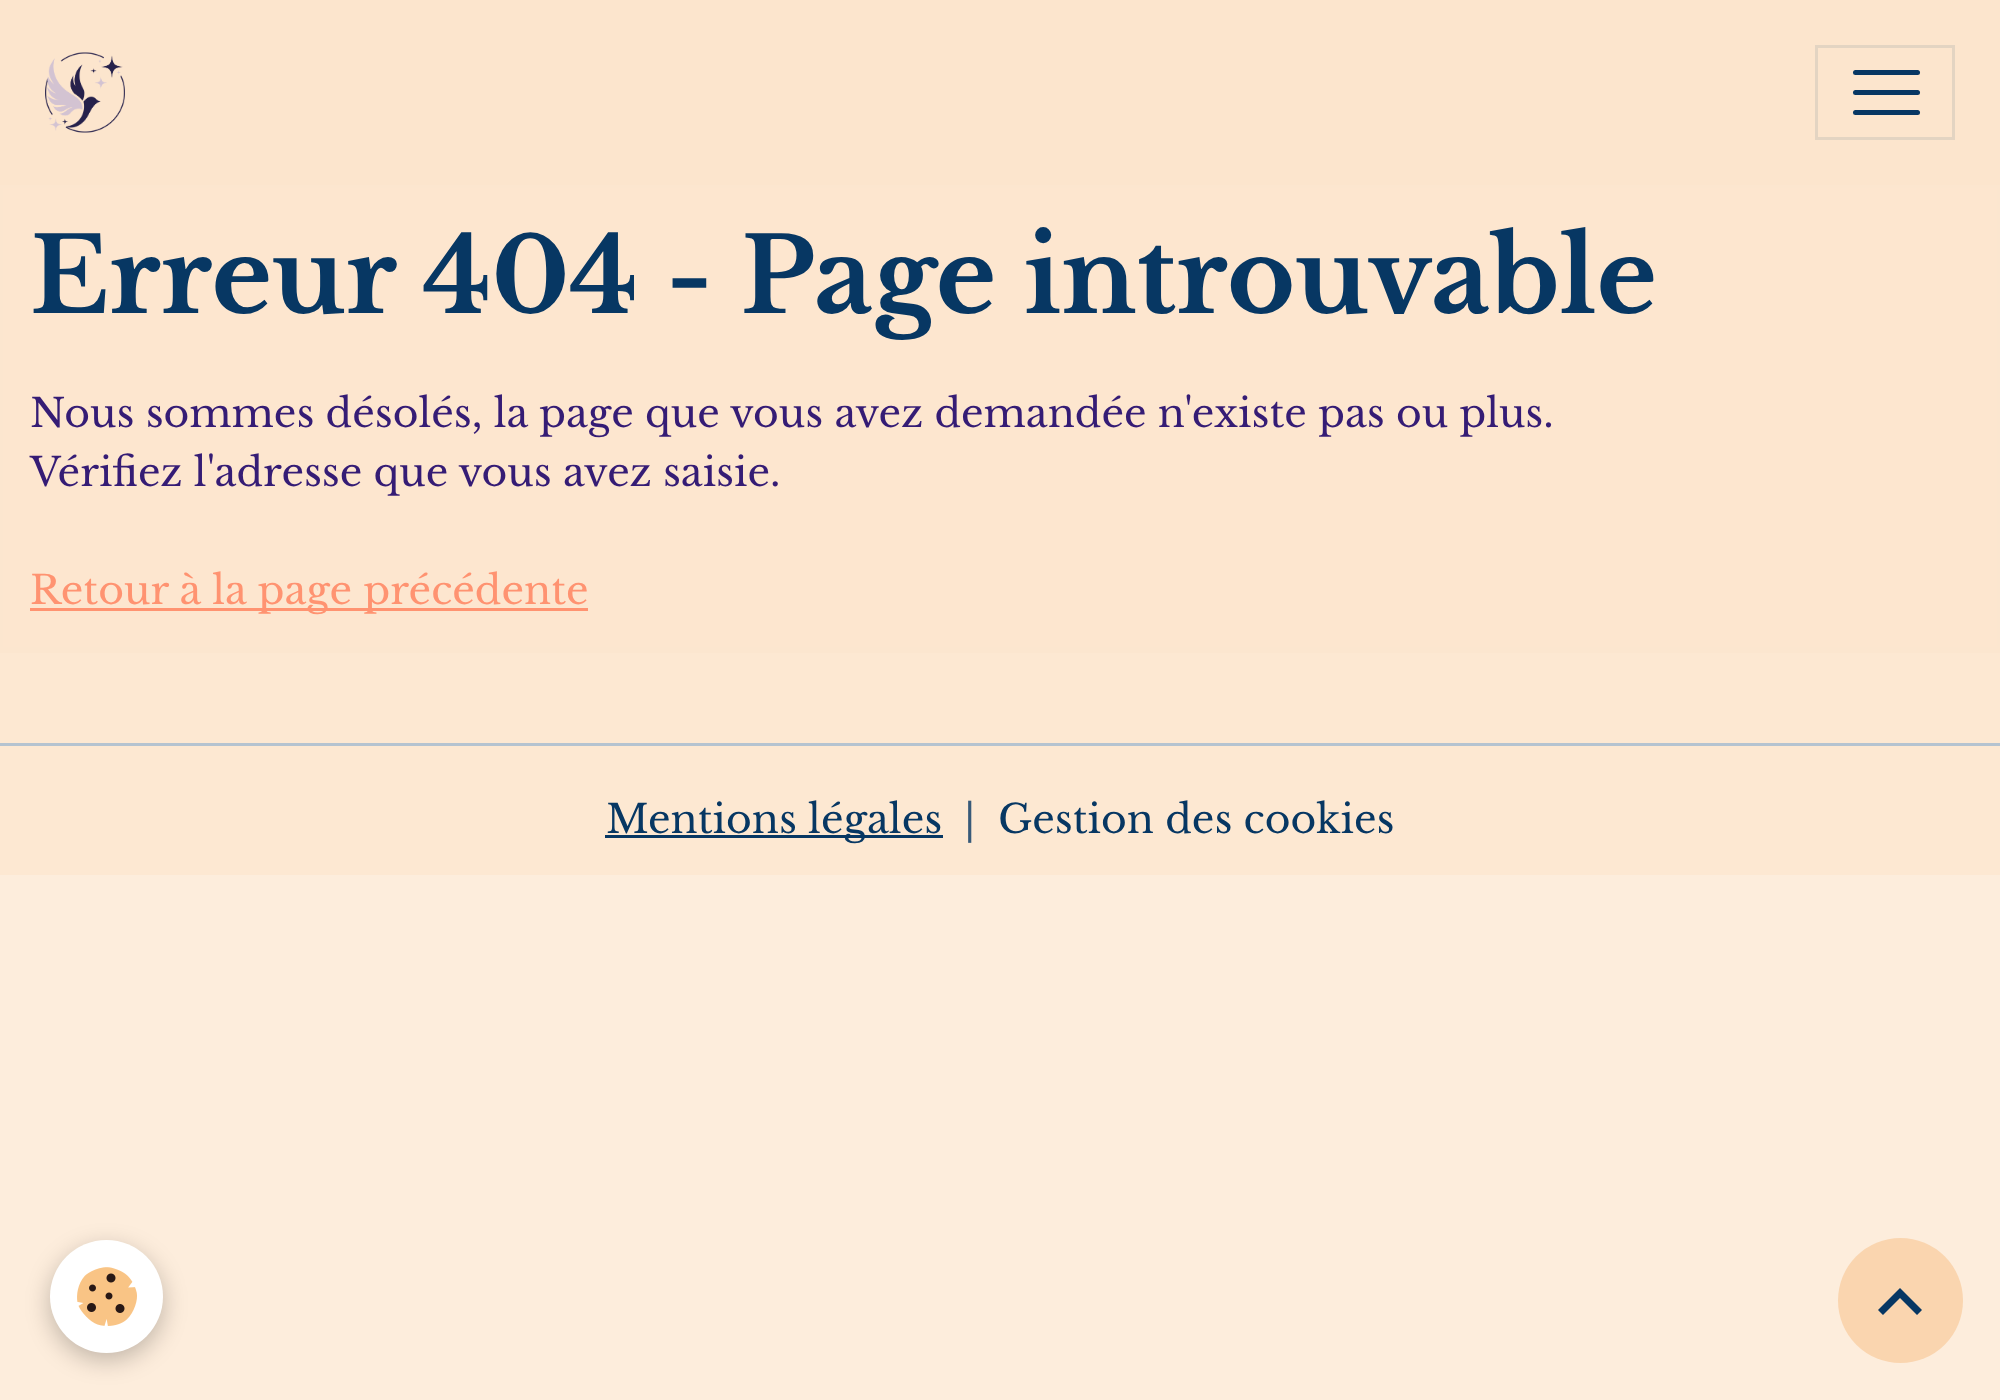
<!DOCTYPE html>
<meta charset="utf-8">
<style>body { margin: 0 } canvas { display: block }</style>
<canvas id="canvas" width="2000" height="1400"></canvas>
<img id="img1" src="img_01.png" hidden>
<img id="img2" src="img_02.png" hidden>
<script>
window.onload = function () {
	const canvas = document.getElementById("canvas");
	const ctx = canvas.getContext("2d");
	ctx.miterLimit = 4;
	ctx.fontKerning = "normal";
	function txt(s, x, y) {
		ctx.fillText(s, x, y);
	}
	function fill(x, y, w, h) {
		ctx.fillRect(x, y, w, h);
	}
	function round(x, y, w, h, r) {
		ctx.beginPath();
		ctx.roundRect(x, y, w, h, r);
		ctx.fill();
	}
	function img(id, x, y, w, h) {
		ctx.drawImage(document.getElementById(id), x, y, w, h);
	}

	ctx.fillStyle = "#FDEDDC";
	fill(0, 0, 2000, 1400);
	ctx.fillStyle = "#FCE5CD";
	fill(0, 0, 2000, 185);
	img("img1", 45, 52, 80, 81);
	ctx.strokeStyle = "#E3D4C2";
	ctx.lineWidth = 3;
	ctx.strokeRect(1816.5, 46.5, 137, 92);
	ctx.fillStyle = "#073763";
	round(1853, 70, 67, 5, 2.5);
	round(1853, 90, 67, 5, 2.5);
	round(1853, 110, 67, 5, 2.5);
	ctx.fillStyle = "#FDE8D2";
	ctx.beginPath();
	ctx.rect(1.5, 186.5, 1997, 462);
	ctx.fill();
	ctx.strokeStyle = "#FCE6CF";
	ctx.stroke();
	ctx.fillStyle = "rgba(252, 229, 205, 0.7)";
	fill(3, 188, 1994, 459);
	ctx.fillStyle = "#FF9371";
	fill(30, 608, 558, 3);
	ctx.fillStyle = "#FDE8D2";
	fill(0, 653, 2000, 222);
	ctx.fillStyle = "#FCE6CF";
	fill(0, 650, 2000, 3);
	ctx.fillStyle = "#B5C3D0";
	fill(0, 743, 2000, 3);
	ctx.fillStyle = "#073763";
	fill(605, 835, 338, 3);
	ctx.fillStyle = "rgba(0, 0, 0, 0.24)";
	ctx.filter = "blur(12.5px)";
	ctx.beginPath();
	ctx.roundRect(50, 1248, 113, 112, 56);
	ctx.fill();
	ctx.filter = "none";
	ctx.fillStyle = "#FFFFFF";
	ctx.beginPath();
	ctx.arc(106.5, 1296.5, 56.5, 0, Math.PI * 2);
	ctx.fill();
	img("img2", 77, 1267, 60, 59);
	ctx.fillStyle = "#FAD5AF";
	ctx.beginPath();
	ctx.arc(1900.5, 1300.5, 62.5, 0, Math.PI * 2);
	ctx.fill();
	ctx.fillStyle = "#073763";
	ctx.beginPath();
	ctx.moveTo(1900, 1288);
	ctx.lineTo(1922, 1310);
	ctx.lineTo(1917, 1315);
	ctx.lineTo(1900, 1298);
	ctx.lineTo(1883, 1315);
	ctx.lineTo(1878, 1310);
	ctx.closePath();
	ctx.fill();
	ctx.font = "bold 103.5px Libre Baskerville";
	txt("Erreur 404 - Page introuvable", 30, 313);
	ctx.font = "39.4px Libre Baskerville";
	ctx.fillStyle = "#351C75";
	txt("Nous sommes désolés, la page que vous avez demandée n'existe pas ou plus.", 30, 427);
	txt("Vérifiez l'adresse que vous avez saisie.", 30, 486);
	ctx.fillStyle = "#FF9371";
	txt("Retour à la page précédente", 30, 604);
	ctx.fillStyle = "#073763";
	txt("Mentions légales", 606, 833);
	ctx.fillStyle = "#385A79";
	txt("|", 964, 833);
	ctx.fillStyle = "#073763";
	txt("Gestion des cookies", 998, 833);
};
</script>
